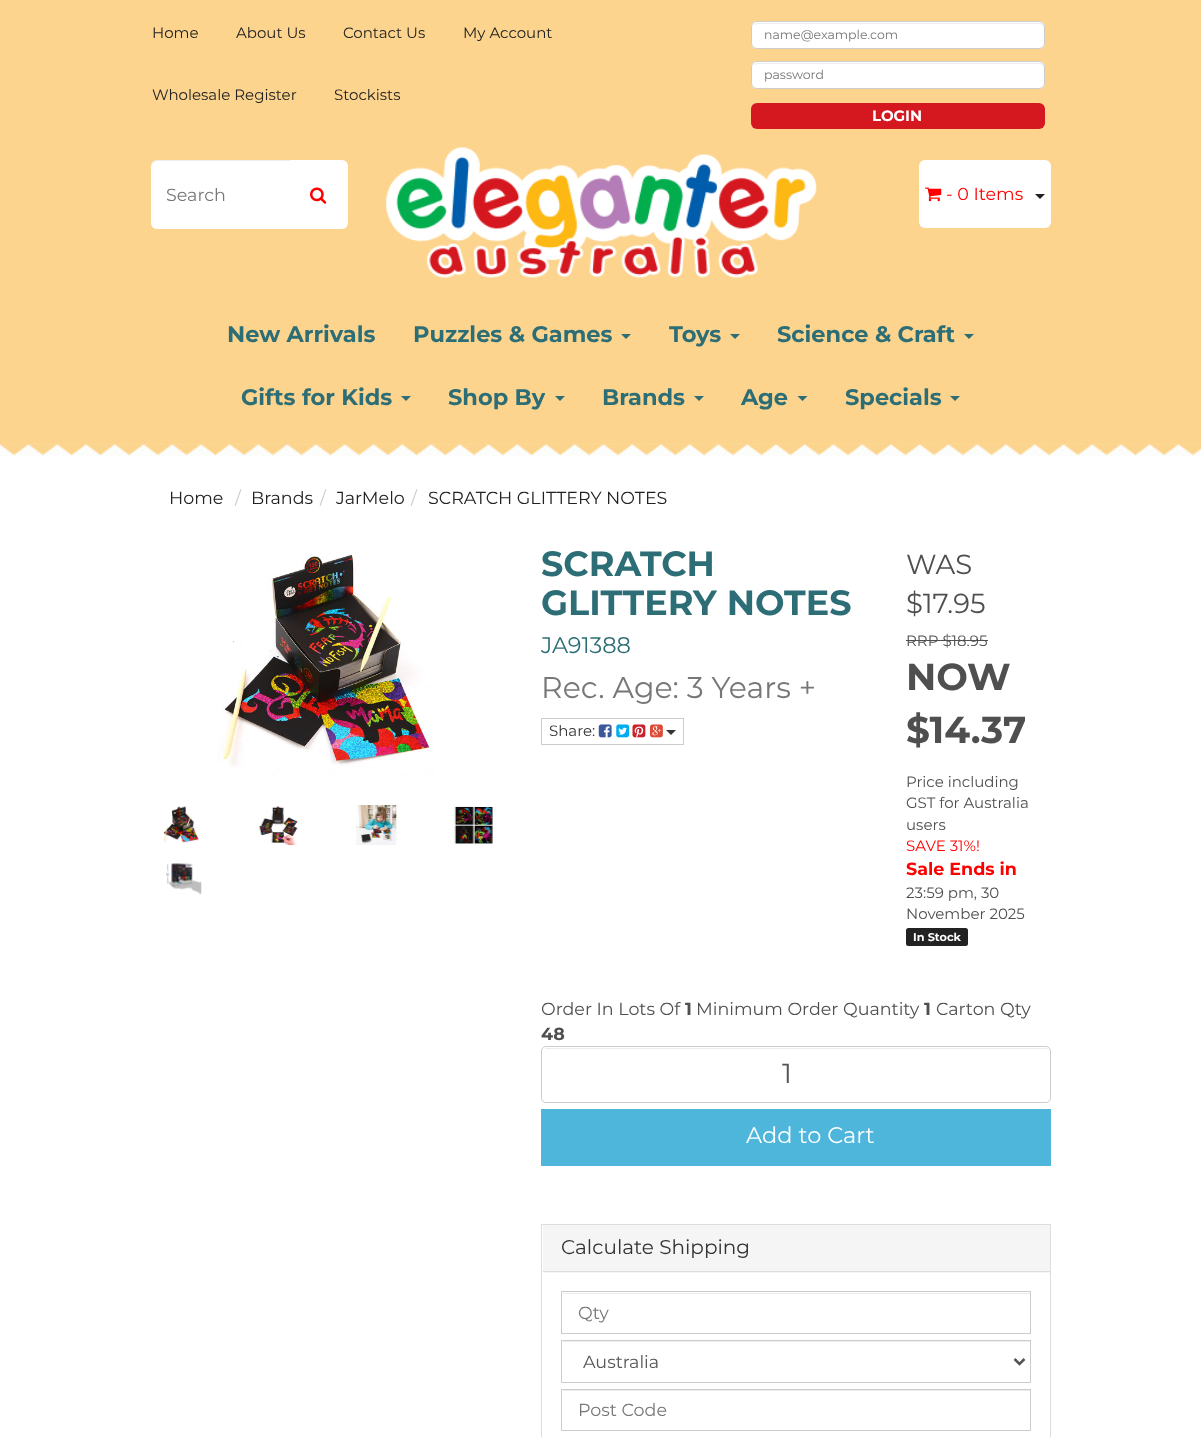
<!DOCTYPE html>
<meta charset="utf-8">
<style>body { margin: 0 } canvas { display: block }</style>
<canvas id="canvas" width="1201" height="1437"></canvas>
<img id="img1" src="img_01.png" hidden>
<img id="img2" src="img_02.png" hidden>
<img id="img3" src="img_03.png" hidden>
<img id="img4" src="img_04.png" hidden>
<img id="img5" src="img_05.png" hidden>
<img id="img6" src="img_06.png" hidden>
<img id="img7" src="img_07.png" hidden>
<img id="img8" src="img_08.png" hidden>
<img id="img9" src="img_09.png" hidden>
<img id="img10" src="img_10.png" hidden>
<img id="img11" src="img_11.png" hidden>
<img id="img12" src="img_12.png" hidden>
<img id="img13" src="img_13.png" hidden>
<img id="img14" src="img_14.png" hidden>
<script>
window.onload = function () {
	const canvas = document.getElementById("canvas");
	const ctx = canvas.getContext("2d");
	ctx.miterLimit = 4;
	ctx.fontKerning = "normal";
	function txt(s, x, y) {
		ctx.fillText(s, x, y);
	}
	function fill(x, y, w, h) {
		ctx.fillRect(x, y, w, h);
	}
	function round(x, y, w, h, r) {
		ctx.beginPath();
		ctx.roundRect(x, y, w, h, r);
		ctx.fill();
	}
	function img(id, x, y, w, h) {
		ctx.drawImage(document.getElementById(id), x, y, w, h);
	}

	ctx.fillStyle = "#FFFFFF";
	fill(0, 0, 1201, 1437);
	ctx.fillStyle = "#FCD48D";
	fill(0, 0, 1201, 443);
	img("img1", 0, 443, 1201, 13);
	ctx.fillStyle = "#FFFFFF";
	round(751, 21, 294, 28, 6);
	ctx.fillStyle = "#ECECEC";
	ctx.beginPath();
	ctx.moveTo(758, 24);
	ctx.lineTo(1039, 24);
	ctx.bezierCurveTo(1042, 24, 1044, 26, 1044, 29);
	ctx.lineTo(1044, 28);
	ctx.bezierCurveTo(1044, 25, 1042, 23, 1039, 23);
	ctx.lineTo(758, 23);
	ctx.bezierCurveTo(756, 23, 754, 24, 754, 26);
	ctx.bezierCurveTo(755, 25, 756, 24, 758, 24);
	ctx.closePath();
	ctx.fill();
	ctx.beginPath();
	ctx.roundRect(751.5, 21.5, 293, 27, 5.5);
	ctx.strokeStyle = "#CCCCCC";
	ctx.stroke();
	ctx.fillStyle = "#FFFFFF";
	round(751, 61, 294, 28, 6);
	ctx.fillStyle = "#ECECEC";
	ctx.beginPath();
	ctx.moveTo(758, 64);
	ctx.lineTo(1039, 64);
	ctx.bezierCurveTo(1042, 64, 1044, 66, 1044, 69);
	ctx.lineTo(1044, 68);
	ctx.bezierCurveTo(1044, 65, 1042, 63, 1039, 63);
	ctx.lineTo(758, 63);
	ctx.bezierCurveTo(756, 63, 754, 64, 754, 66);
	ctx.bezierCurveTo(755, 65, 756, 64, 758, 64);
	ctx.closePath();
	ctx.fill();
	ctx.beginPath();
	ctx.roundRect(751.5, 61.5, 293, 27, 5.5);
	ctx.stroke();
	ctx.fillStyle = "#D51820";
	round(751, 103, 294, 26, 6);
	ctx.fillStyle = "#FFFFFF";
	ctx.beginPath();
	ctx.roundRect(289, 160, 59, 69, [0, 6, 6, 0]);
	ctx.fill();
	ctx.beginPath();
	ctx.roundRect(151, 160, 139, 69, [6, 0, 0, 6]);
	ctx.fill();
	ctx.fillStyle = "rgba(0, 0, 0, 0.07)";
	ctx.beginPath();
	ctx.moveTo(158, 161);
	ctx.lineTo(290, 161);
	ctx.lineTo(290, 160);
	ctx.lineTo(157, 160);
	ctx.bezierCurveTo(154, 160, 151, 163, 151, 166);
	ctx.lineTo(151, 168);
	ctx.bezierCurveTo(151, 164, 154, 161, 158, 161);
	ctx.closePath();
	ctx.fill();
	img("img2", 310, 187, 17, 17);
	img("img3", 385, 147, 432, 131);
	ctx.fillStyle = "#FFFFFF";
	ctx.beginPath();
	ctx.roundRect(919, 160, 111, 68, [6, 0, 0, 6]);
	ctx.fill();
	img("img4", 925, 187, 17, 15);
	ctx.beginPath();
	ctx.roundRect(1029, 160, 22, 68, [0, 6, 6, 0]);
	ctx.fill();
	ctx.fillStyle = "#222222";
	ctx.beginPath();
	ctx.moveTo(1035, 194);
	ctx.lineTo(1045, 194);
	ctx.lineTo(1040, 199);
	ctx.closePath();
	ctx.fill();
	ctx.fillStyle = "#2D6E76";
	ctx.beginPath();
	ctx.moveTo(621, 334);
	ctx.lineTo(631, 334);
	ctx.lineTo(626, 339);
	ctx.closePath();
	ctx.fill();
	ctx.beginPath();
	ctx.moveTo(730, 334);
	ctx.lineTo(740, 334);
	ctx.lineTo(735, 339);
	ctx.closePath();
	ctx.fill();
	ctx.beginPath();
	ctx.moveTo(964, 334);
	ctx.lineTo(974, 334);
	ctx.lineTo(969, 339);
	ctx.closePath();
	ctx.fill();
	ctx.beginPath();
	ctx.moveTo(401, 396);
	ctx.lineTo(411, 396);
	ctx.lineTo(406, 401);
	ctx.closePath();
	ctx.fill();
	ctx.beginPath();
	ctx.moveTo(555, 396);
	ctx.lineTo(565, 396);
	ctx.lineTo(560, 401);
	ctx.closePath();
	ctx.fill();
	ctx.beginPath();
	ctx.moveTo(694, 396);
	ctx.lineTo(704, 396);
	ctx.lineTo(699, 401);
	ctx.closePath();
	ctx.fill();
	ctx.beginPath();
	ctx.moveTo(797.5, 396);
	ctx.lineTo(807.5, 396);
	ctx.lineTo(802.5, 401);
	ctx.closePath();
	ctx.fill();
	ctx.beginPath();
	ctx.moveTo(950, 396);
	ctx.lineTo(960, 396);
	ctx.lineTo(955, 401);
	ctx.closePath();
	ctx.fill();
	img("img5", 217, 554, 218, 223);
	img("img6", 163, 806, 36, 37);
	img("img7", 258, 806, 40, 39);
	img("img8", 356, 805, 41, 40);
	img("img9", 454, 806, 39, 38);
	img("img10", 166, 863, 36, 32);
	ctx.strokeRect(541.5, 718.5, 142, 26);
	img("img11", 598, 724, 14, 14);
	img("img12", 616, 724, 14, 14);
	img("img13", 632, 724, 14, 14);
	img("img14", 650, 724, 13, 14);
	ctx.fillStyle = "#333333";
	ctx.beginPath();
	ctx.moveTo(666, 730);
	ctx.lineTo(676, 730);
	ctx.lineTo(671, 735);
	ctx.closePath();
	ctx.fill();
	ctx.fillStyle = "#4F4F4F";
	fill(906, 640, 82, 1);
	ctx.fillStyle = "#222222";
	round(906, 928, 62, 18, 2.5);
	ctx.fillStyle = "#ECECEC";
	ctx.beginPath();
	ctx.moveTo(546, 1049);
	ctx.lineTo(1046, 1049);
	ctx.bezierCurveTo(1048, 1049, 1050, 1050, 1050, 1052);
	ctx.bezierCurveTo(1050, 1050, 1048, 1048, 1046, 1048);
	ctx.lineTo(547, 1048);
	ctx.bezierCurveTo(546, 1048, 545, 1049, 544, 1049);
	ctx.closePath();
	ctx.fill();
	ctx.beginPath();
	ctx.roundRect(541.5, 1046.5, 509, 56, 4.5);
	ctx.stroke();
	ctx.fillStyle = "#4FB6DB";
	fill(541, 1109, 510, 57);
	ctx.strokeStyle = "#DDDDDD";
	ctx.strokeRect(541.5, 1224.5, 509, 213);
	ctx.fillStyle = "#F5F5F5";
	fill(543, 1225, 507, 48);
	ctx.fillStyle = "#DDDDDD";
	fill(543, 1271, 507, 1);
	ctx.fillStyle = "#ECECEC";
	fill(563, 1293, 467, 1);
	ctx.strokeStyle = "#CCCCCC";
	ctx.strokeRect(561.5, 1291.5, 469, 42);
	fill(563, 1341, 467, 1);
	ctx.strokeRect(561.5, 1340.5, 469, 42);
	ctx.beginPath();
	ctx.moveTo(1014.5, 1359);
	ctx.lineTo(1019.5, 1364);
	ctx.lineTo(1024.5, 1359);
	ctx.strokeStyle = "#555555";
	ctx.lineWidth = 2.5;
	ctx.stroke();
	fill(563, 1390, 467, 1);
	ctx.strokeStyle = "#CCCCCC";
	ctx.lineWidth = 1;
	ctx.strokeRect(561.5, 1389.5, 469, 41);
	ctx.font = "15px Montserrat";
	ctx.fillStyle = "#222222";
	txt("Home", 152, 38);
	txt("About Us", 236, 38);
	txt("Contact Us", 343, 38);
	txt("My Account", 463, 38);
	txt("Wholesale Register", 152, 100);
	txt("Stockists", 334, 100);
	ctx.font = "12.5px Montserrat";
	ctx.fillStyle = "#777777";
	txt("name@example.com", 764, 39);
	txt("password", 764, 79);
	ctx.font = "bold 15px Montserrat";
	ctx.fillStyle = "#FFFFFF";
	txt("LOGIN", 872, 121);
	ctx.font = "17.5px Montserrat";
	ctx.fillStyle = "#777777";
	txt("Search", 166, 201);
	ctx.fillStyle = "#FF0000";
	txt("- 0 Items", 946, 200);
	ctx.font = "bold 22.5px Montserrat";
	ctx.fillStyle = "#2D6E76";
	txt("New Arrivals", 227, 342);
	txt("Puzzles & Games", 413, 342);
	txt("Toys", 669, 342);
	txt("Science & Craft", 777, 342);
	txt("Gifts for Kids", 241, 405);
	txt("Shop By", 448, 405);
	txt("Brands", 602, 405);
	txt("Age", 741, 405);
	txt("Specials", 845, 405);
	ctx.font = "17.5px Montserrat";
	ctx.fillStyle = "#222222";
	txt("Home", 169, 504);
	ctx.fillStyle = "#CCCCCC";
	txt("/", 235, 504);
	ctx.fillStyle = "#222222";
	txt("Brands", 251, 504);
	ctx.fillStyle = "#CCCCCC";
	txt("/", 320, 504);
	ctx.fillStyle = "#222222";
	txt("JarMelo", 336, 504);
	ctx.fillStyle = "#CCCCCC";
	txt("/", 411, 504);
	ctx.fillStyle = "#222222";
	txt("SCRATCH GLITTERY NOTES", 428, 504);
	ctx.font = "bold 35px Montserrat";
	ctx.fillStyle = "#2D6E76";
	txt("SCRATCH", 541, 576);
	txt("GLITTERY NOTES", 541, 615);
	ctx.font = "22.5px Montserrat";
	txt("JA91388", 541, 653);
	ctx.font = "30px Montserrat";
	ctx.fillStyle = "#777777";
	txt("Rec. Age: 3 Years +", 541, 698);
	ctx.font = "15px Montserrat";
	ctx.fillStyle = "#333333";
	txt("Share:", 549, 736);
	ctx.font = "27.5px Montserrat";
	ctx.fillStyle = "#4F4F4F";
	txt("WAS", 906, 574);
	txt("$17.95", 906, 613);
	ctx.font = "15px Montserrat";
	txt("RRP $18.95", 906, 646);
	ctx.font = "bold 37.5px Montserrat";
	txt("NOW", 906, 690);
	txt("$14.37", 906, 743);
	ctx.font = "15px Montserrat";
	txt("Price including", 906, 787);
	txt("GST for Australia", 906, 808);
	txt("users", 906, 830);
	ctx.fillStyle = "#FF0000";
	txt("SAVE 31%!", 906, 851);
	ctx.font = "bold 17.5px Montserrat";
	txt("Sale Ends in", 906, 875);
	ctx.font = "15px Montserrat";
	ctx.fillStyle = "#4F4F4F";
	txt("23:59 pm, 30", 906, 898);
	txt("November 2025", 906, 919);
	ctx.font = "bold 11.25px Montserrat";
	ctx.fillStyle = "#FFFFFF";
	txt("In Stock", 913, 941);
	ctx.font = "17.5px Montserrat";
	ctx.fillStyle = "#4F4F4F";
	txt("Order In Lots Of", 541, 1015);
	ctx.font = "bold 17.5px Montserrat";
	txt("1", 685, 1015);
	ctx.font = "17.5px Montserrat";
	txt("Minimum Order Quantity", 696, 1015);
	ctx.font = "bold 17.5px Montserrat";
	txt("1", 924, 1015);
	ctx.font = "17.5px Montserrat";
	txt("Carton Qty", 936, 1015);
	ctx.font = "bold 17.5px Montserrat";
	txt("48", 541, 1040);
	ctx.font = "27.5px Montserrat";
	ctx.fillStyle = "#555555";
	txt("1", 782, 1083);
	ctx.font = "22.5px Montserrat";
	ctx.fillStyle = "#FFFFFF";
	txt("Add to Cart", 746, 1143);
	ctx.font = "20px Montserrat";
	ctx.fillStyle = "#333333";
	txt("Calculate Shipping", 561, 1254);
	ctx.font = "17.5px Montserrat";
	ctx.fillStyle = "#777777";
	txt("Qty", 578, 1319);
	ctx.fillStyle = "#555555";
	txt("Australia", 583, 1368);
	ctx.fillStyle = "#777777";
	txt("Post Code", 578, 1416);
};
</script>
